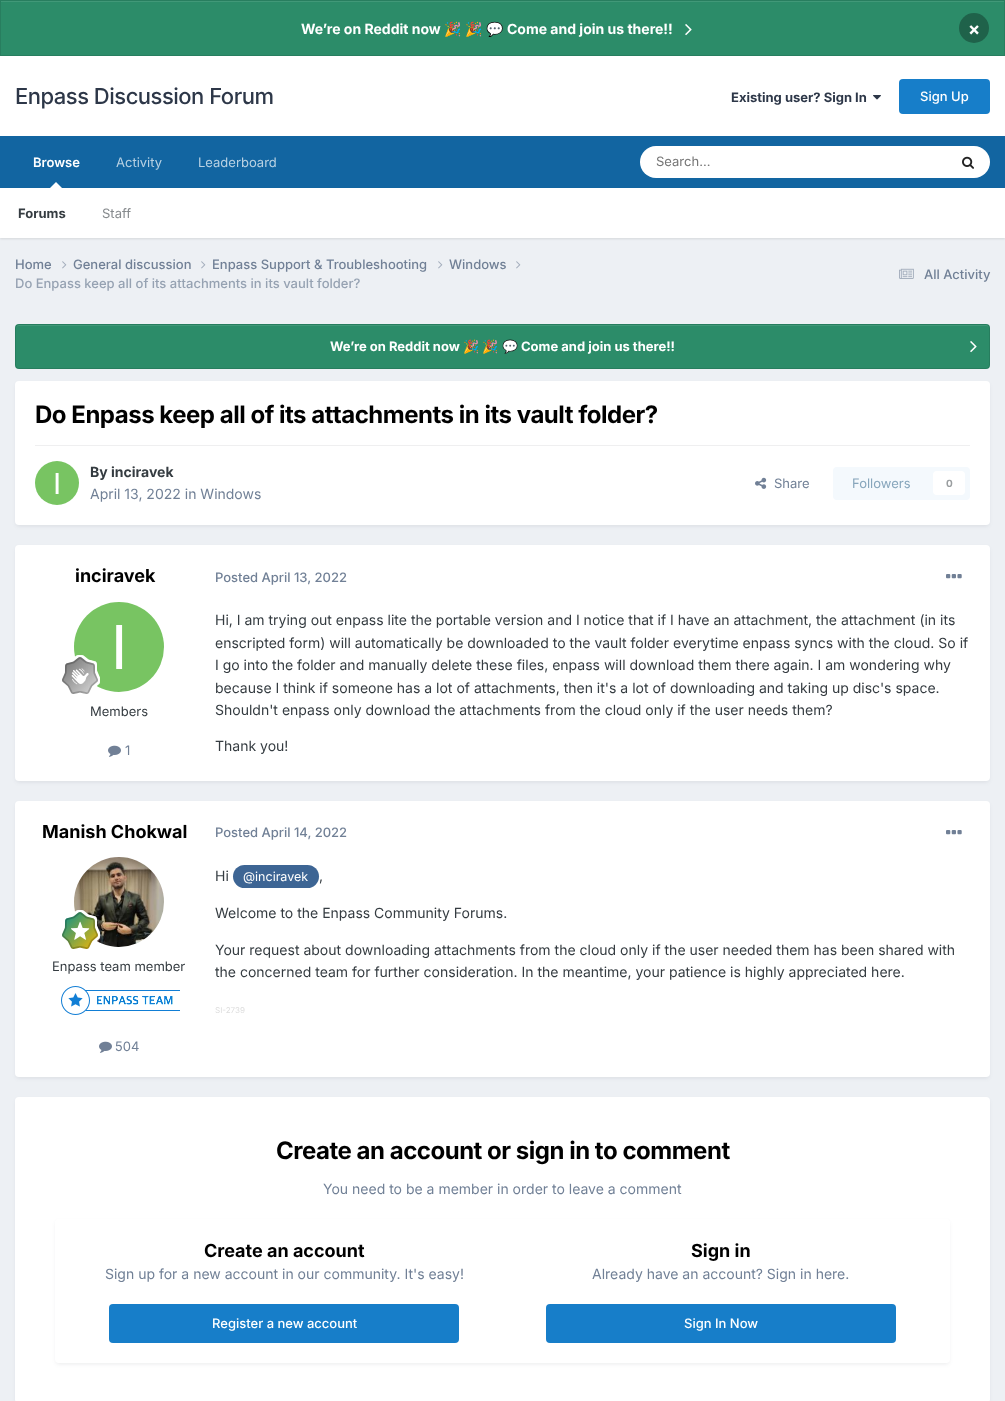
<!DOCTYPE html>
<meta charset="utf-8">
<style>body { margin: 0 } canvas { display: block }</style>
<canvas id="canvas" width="1005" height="1401"></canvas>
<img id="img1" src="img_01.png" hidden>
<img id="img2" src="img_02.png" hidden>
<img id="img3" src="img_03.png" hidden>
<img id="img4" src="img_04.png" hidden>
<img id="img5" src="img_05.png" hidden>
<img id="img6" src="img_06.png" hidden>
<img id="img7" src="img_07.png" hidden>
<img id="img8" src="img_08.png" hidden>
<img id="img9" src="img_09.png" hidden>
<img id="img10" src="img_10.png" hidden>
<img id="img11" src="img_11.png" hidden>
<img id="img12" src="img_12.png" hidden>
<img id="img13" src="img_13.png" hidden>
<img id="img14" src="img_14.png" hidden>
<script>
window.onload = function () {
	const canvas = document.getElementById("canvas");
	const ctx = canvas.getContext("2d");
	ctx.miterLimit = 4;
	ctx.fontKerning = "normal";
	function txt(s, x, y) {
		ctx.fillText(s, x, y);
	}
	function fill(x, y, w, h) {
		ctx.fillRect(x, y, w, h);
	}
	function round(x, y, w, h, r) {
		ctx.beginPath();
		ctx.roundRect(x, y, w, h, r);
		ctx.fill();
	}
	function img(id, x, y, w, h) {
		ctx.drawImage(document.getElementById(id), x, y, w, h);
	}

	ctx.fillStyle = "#EDF0F4";
	fill(0, 0, 1005, 1401);
	ctx.fillStyle = "#2C8C69";
	fill(1, 2, 1003, 53);
	ctx.fillStyle = "#419878";
	fill(1, 1, 1003, 1);
	ctx.strokeStyle = "#287E5F";
	ctx.strokeRect(0.5, 0.5, 1004, 55);
	img("img1", 685, 24, 7, 12);
	ctx.fillStyle = "#1F624A";
	ctx.beginPath();
	ctx.arc(974, 28, 15, 0, Math.PI * 2);
	ctx.fill();
	ctx.fillStyle = "#FFFFFF";
	fill(0, 56, 1005, 80);
	img("img2", 873, 95, 8, 5);
	ctx.fillStyle = "#177EC9";
	round(899, 79, 91, 35, 4);
	ctx.fillStyle = "#1265A1";
	fill(0, 136, 1005, 52);
	ctx.fillStyle = "rgba(0, 0, 0, 0.1)";
	ctx.filter = "blur(1px)";
	ctx.beginPath();
	ctx.rect(0, 189, 1005, 50);
	ctx.fill();
	ctx.filter = "none";
	ctx.fillStyle = "#FFFFFF";
	ctx.beginPath();
	ctx.moveTo(62, 188);
	ctx.lineTo(50, 188);
	ctx.lineTo(56, 182);
	ctx.closePath();
	ctx.fill();
	round(640, 146, 350, 32, 16);
	img("img3", 962, 156, 12, 13);
	fill(0, 188, 1005, 50);
	img("img4", 62, 261, 5, 8);
	img("img4", 201, 261, 5, 8);
	img("img4", 438, 261, 5, 8);
	img("img4", 516, 261, 5, 8);
	img("img5", 899, 268, 15, 11);
	ctx.fillStyle = "#2C8C69";
	round(15, 324, 975, 45, 4);
	ctx.fillStyle = "#419878";
	ctx.beginPath();
	ctx.moveTo(19, 326);
	ctx.lineTo(986, 326);
	ctx.bezierCurveTo(988, 326, 989, 327, 989, 329);
	ctx.bezierCurveTo(989, 327, 988, 325, 986, 325);
	ctx.lineTo(19, 325);
	ctx.bezierCurveTo(17, 325, 16, 327, 16, 329);
	ctx.bezierCurveTo(16, 327, 17, 326, 19, 326);
	ctx.closePath();
	ctx.fill();
	ctx.beginPath();
	ctx.roundRect(15.5, 324.5, 974, 44, 3.5);
	ctx.strokeStyle = "rgba(0, 0, 0, 0.1)";
	ctx.stroke();
	img("img1", 970, 341, 7, 12);
	ctx.fillStyle = "rgba(45, 55, 72, 0.1)";
	ctx.filter = "blur(2px)";
	ctx.beginPath();
	ctx.roundRect(16, 384, 973, 142, 3);
	ctx.fill();
	ctx.filter = "none";
	ctx.fillStyle = "#FFFFFF";
	round(15, 381, 975, 144, 4);
	ctx.fillStyle = "#EFEFF0";
	fill(35, 445, 935, 1);
	img("img6", 35, 461, 44, 44);
	img("img7", 755, 477, 12, 12);
	ctx.fillStyle = "#F4F9FD";
	round(833, 467, 137, 33, 4);
	ctx.fillStyle = "#FFFFFF";
	round(933, 471, 32, 24, 4);
	ctx.fillStyle = "rgba(45, 55, 72, 0.1)";
	ctx.filter = "blur(2px)";
	ctx.beginPath();
	ctx.roundRect(16, 548, 973, 234, 3);
	ctx.fill();
	ctx.filter = "none";
	ctx.fillStyle = "#FFFFFF";
	round(15, 545, 975, 236, 4);
	img("img8", 74, 602, 90, 90);
	img("img9", 62, 655, 38, 39);
	img("img10", 108, 745, 13, 12);
	img("img11", 946, 574, 16, 5);
	ctx.fillStyle = "rgba(45, 55, 72, 0.1)";
	ctx.filter = "blur(2px)";
	ctx.beginPath();
	ctx.roundRect(16, 804, 973, 274, 3);
	ctx.fill();
	ctx.filter = "none";
	ctx.fillStyle = "#FFFFFF";
	round(15, 801, 975, 276, 4);
	img("img12", 74, 857, 90, 90);
	img("img13", 62, 910, 38, 39);
	img("img14", 61, 986, 119, 29);
	img("img10", 99, 1041, 13, 12);
	img("img11", 946, 830, 16, 5);
	ctx.fillStyle = "#3D6594";
	round(233, 865, 86, 23, 11.5);
	ctx.fillStyle = "rgba(45, 55, 72, 0.1)";
	ctx.filter = "blur(2px)";
	ctx.beginPath();
	ctx.roundRect(16, 1100, 973, 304, 3);
	ctx.fill();
	ctx.filter = "none";
	ctx.fillStyle = "#FFFFFF";
	round(15, 1097, 975, 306, 4);
	ctx.fillStyle = "rgba(45, 55, 72, 0.1)";
	ctx.filter = "blur(2px)";
	ctx.beginPath();
	ctx.roundRect(56, 1222, 893, 142, 3);
	ctx.fill();
	ctx.filter = "none";
	ctx.fillStyle = "#FFFFFF";
	round(55, 1219, 895, 144, 4);
	ctx.fillStyle = "#177EC9";
	round(109, 1304, 350, 39, 4);
	round(546, 1304, 350, 39, 4);
	ctx.font = "bold 14px Inter";
	ctx.fillStyle = "#FFFFFF";
	txt("We’re on Reddit now", 301, 34);
	ctx.font = "bold 14px Noto Color Emoji";
	txt("🎉", 444, 34);
	txt("🎉", 465, 34);
	txt("💬", 486, 34);
	ctx.font = "bold 14px Inter";
	txt("Come and join us there!!", 507, 34);
	ctx.font = "bold 18px Inter";
	txt("×", 968, 35);
	ctx.letterSpacing = "-0.5px";
	ctx.font = "500 22px Inter";
	ctx.fillStyle = "#2D3748";
	txt("Enpass Discussion Forum", 15, 104);
	ctx.letterSpacing = "0px";
	ctx.font = "bold 13px Inter";
	txt("Existing user? Sign In", 731, 102);
	ctx.font = "500 13px Inter";
	ctx.fillStyle = "#FFFFFF";
	txt("Sign Up", 920, 101);
	ctx.font = "600 13px Inter";
	txt("Browse", 33, 167);
	ctx.font = "bold 13px Inter";
	ctx.fillStyle = "#353C41";
	txt("Forums", 18, 218);
	ctx.font = "13px Inter";
	ctx.fillStyle = "#868A8D";
	txt("Staff", 102, 218);
	ctx.fillStyle = "#B8D1E3";
	txt("Activity", 116, 167);
	txt("Leaderboard", 198, 167);
	ctx.fillStyle = "#757575";
	txt("Search...", 656, 166);
	ctx.font = "500 13px Inter";
	ctx.fillStyle = "#718096";
	txt("Home", 15, 269);
	txt("General discussion", 73, 269);
	txt("Enpass Support & Troubleshooting", 212, 269);
	txt("Windows", 449, 269);
	ctx.fillStyle = "#96A2B2";
	txt("Do Enpass keep all of its attachments in its vault folder?", 15, 288);
	ctx.fillStyle = "#718096";
	txt("All Activity", 924, 279);
	ctx.font = "bold 13px Inter";
	ctx.fillStyle = "#FFFFFF";
	txt("We’re on Reddit now", 330, 351);
	ctx.font = "bold 13px Noto Color Emoji";
	txt("🎉", 463, 351);
	txt("🎉", 482, 351);
	txt("💬", 502, 351);
	ctx.font = "bold 13px Inter";
	txt("Come and join us there!!", 521, 351);
	ctx.letterSpacing = "-0.48px";
	ctx.font = "bold 24px Inter";
	ctx.fillStyle = "#000000";
	txt("Do Enpass keep all of its attachments in its vault folder?", 35, 423);
	ctx.letterSpacing = "0px";
	ctx.font = "bold 14px Inter";
	ctx.fillStyle = "#353C41";
	txt("By inciravek", 90, 477);
	ctx.font = "14px Inter";
	ctx.fillStyle = "#718096";
	txt("April 13, 2022 in Windows", 90, 499);
	ctx.font = "13px Inter";
	txt("Share", 774, 488);
	ctx.fillStyle = "#87A6BC";
	txt("Followers", 852, 488);
	ctx.font = "bold 10px Inter";
	ctx.fillStyle = "#9A9EA0";
	txt("0", 946, 487);
	ctx.font = "bold 18px Inter";
	ctx.fillStyle = "#000000";
	txt("inciravek", 75, 582);
	ctx.font = "13px Inter";
	ctx.fillStyle = "#353C41";
	txt("Members", 90, 716);
	ctx.fillStyle = "#718096";
	txt("1", 125, 755);
	ctx.font = "500 13px Inter";
	txt("Posted April 13, 2022", 215, 582);
	ctx.font = "14px Inter";
	ctx.fillStyle = "#353C41";
	txt("Hi, I am trying out enpass lite the portable version and I notice that if I have an attachment, the attachment (in its", 215, 625);
	txt("enscripted form) will automatically be downloaded to the vault folder everytime enpass syncs with the cloud. So if", 215, 648);
	txt("I go into the folder and manually delete these files, enpass will download them there again. I am wondering why", 215, 670);
	txt("because I think if someone has a lot of attachments, then it's a lot of downloading and taking up disc's space.", 215, 693);
	txt("Shouldn't enpass only download the attachments from the cloud only if the user needs them?", 215, 715);
	txt("Thank you!", 215, 751);
	ctx.font = "bold 18px Inter";
	ctx.fillStyle = "#000000";
	txt("Manish Chokwal", 42, 838);
	ctx.font = "13px Inter";
	ctx.fillStyle = "#353C41";
	txt("Enpass team member", 52, 971);
	ctx.fillStyle = "#718096";
	txt("504", 115, 1051);
	ctx.font = "500 13px Inter";
	txt("Posted April 14, 2022", 215, 837);
	ctx.font = "14px Inter";
	ctx.fillStyle = "#353C41";
	txt("Hi", 215, 881);
	ctx.font = "12.5px Inter";
	ctx.fillStyle = "#FFFFFF";
	txt("@inciravek", 243, 881);
	ctx.font = "14px Inter";
	ctx.fillStyle = "#353C41";
	txt(",", 319, 881);
	txt("Welcome to the Enpass Community Forums.", 215, 918);
	txt("Your request about downloading attachments from the cloud only if the user needed them has been shared with", 215, 955);
	txt("the concerned team for further consideration. In the meantime, your patience is highly appreciated here.", 215, 977);
	ctx.font = "8px Inter";
	ctx.fillStyle = "#DDDDDD";
	txt("SI-2739", 215, 1013);
	ctx.letterSpacing = "-0.48px";
	ctx.font = "bold 24px Inter";
	ctx.fillStyle = "#000000";
	txt("Create an account or sign in to comment", 276, 1159);
	ctx.letterSpacing = "0px";
	ctx.font = "14px Inter";
	ctx.fillStyle = "#718096";
	txt("You need to be a member in order to leave a comment", 323, 1194);
	ctx.font = "bold 18px Inter";
	ctx.fillStyle = "#000000";
	txt("Create an account", 204, 1257);
	ctx.font = "14px Inter";
	ctx.fillStyle = "#718096";
	txt("Sign up for a new account in our community. It's easy!", 105, 1279);
	ctx.font = "500 13px Inter";
	ctx.fillStyle = "#FFFFFF";
	txt("Register a new account", 212, 1328);
	ctx.font = "bold 18px Inter";
	ctx.fillStyle = "#000000";
	txt("Sign in", 691, 1257);
	ctx.font = "14px Inter";
	ctx.fillStyle = "#718096";
	txt("Already have an account? Sign in here.", 592, 1279);
	ctx.font = "500 13px Inter";
	ctx.fillStyle = "#FFFFFF";
	txt("Sign In Now", 684, 1328);
};
</script>
